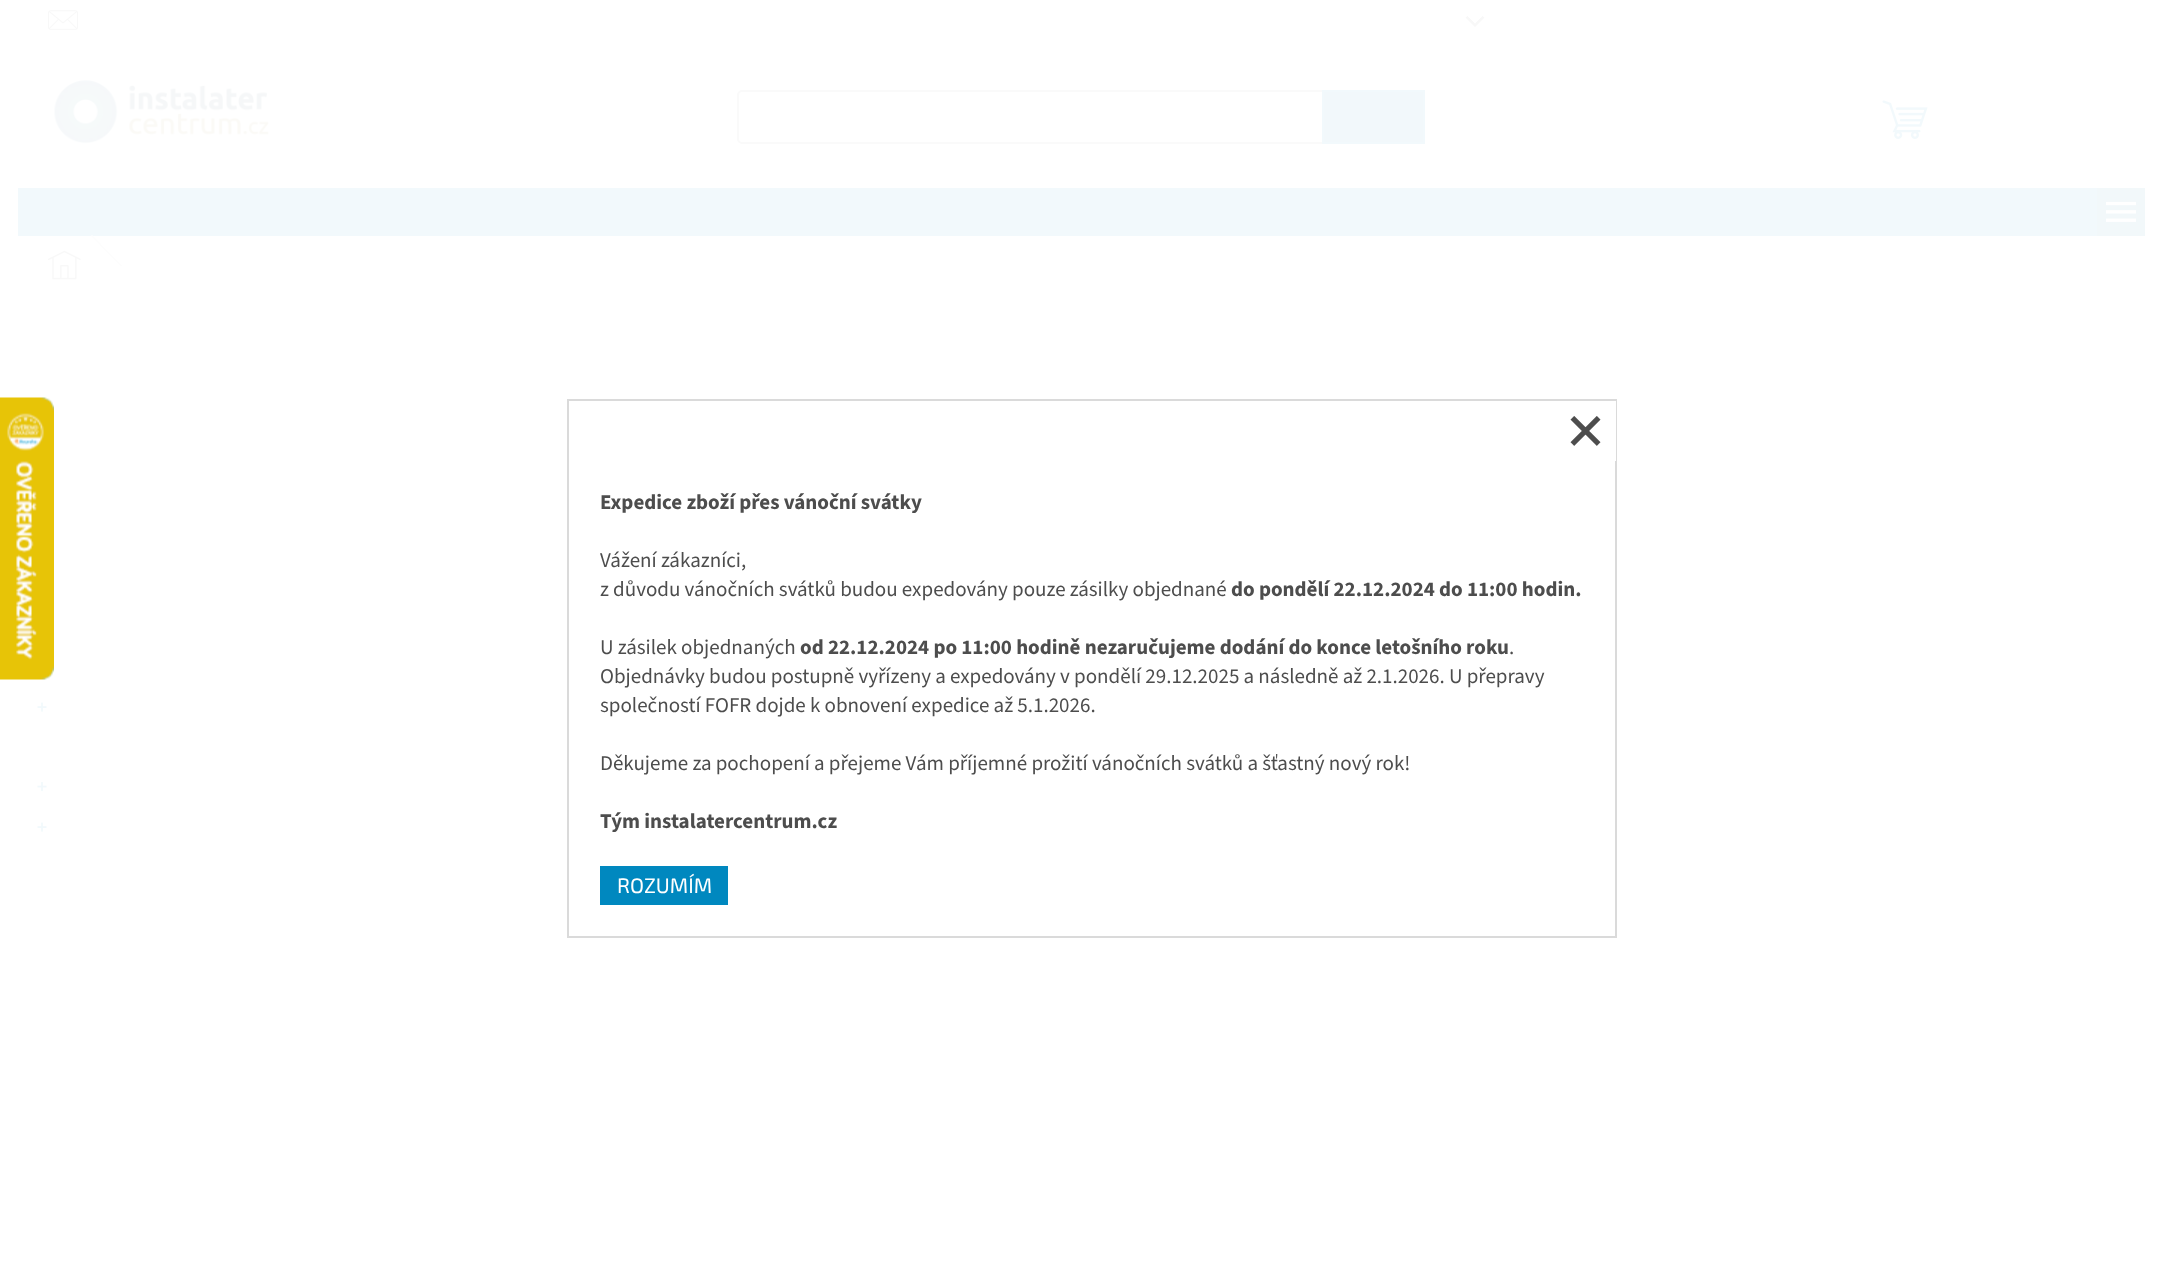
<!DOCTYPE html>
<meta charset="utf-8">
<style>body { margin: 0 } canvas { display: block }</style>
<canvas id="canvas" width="2183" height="1287"></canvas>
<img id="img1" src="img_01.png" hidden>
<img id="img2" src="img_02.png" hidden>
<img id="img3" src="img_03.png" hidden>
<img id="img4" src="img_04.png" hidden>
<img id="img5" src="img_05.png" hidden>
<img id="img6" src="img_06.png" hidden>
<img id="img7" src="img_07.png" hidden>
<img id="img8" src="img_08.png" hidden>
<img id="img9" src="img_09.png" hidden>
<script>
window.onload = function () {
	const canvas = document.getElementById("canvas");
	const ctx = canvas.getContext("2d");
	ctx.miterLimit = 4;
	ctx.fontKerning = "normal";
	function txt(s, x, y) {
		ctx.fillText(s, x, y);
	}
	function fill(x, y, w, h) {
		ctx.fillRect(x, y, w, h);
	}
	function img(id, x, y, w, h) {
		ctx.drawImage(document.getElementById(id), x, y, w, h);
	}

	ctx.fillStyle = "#FFFFFF";
	fill(0, 0, 2183, 1287);
	img("img1", 48, 10, 30, 20);
	ctx.fillStyle = "#F8F8F8";
	ctx.beginPath();
	ctx.moveTo(1465.5, 17.5);
	ctx.lineTo(1467.5, 16);
	ctx.lineTo(1475, 23.5);
	ctx.lineTo(1482.5, 16);
	ctx.lineTo(1484.5, 17.5);
	ctx.lineTo(1475, 27);
	ctx.closePath();
	ctx.fill();
	img("img2", 53, 79, 216, 65);
	ctx.beginPath();
	ctx.roundRect(738, 91, 686, 52, 4);
	ctx.strokeStyle = "#FAFAFA";
	ctx.lineWidth = 2;
	ctx.stroke();
	ctx.fillStyle = "#F2F8FB";
	ctx.beginPath();
	ctx.rect(1323, 91, 101, 52);
	ctx.fill();
	ctx.strokeStyle = "#F2F9FC";
	ctx.stroke();
	img("img3", 1882, 100, 46, 39);
	ctx.fillStyle = "#F2F9FC";
	fill(18, 188, 2079, 48);
	ctx.fillStyle = "#F2F8FA";
	fill(2097, 188, 48, 48);
	img("img4", 2106, 201, 30, 21);
	img("img5", 47, 250, 34, 30);
	ctx.fillStyle = "#FDFDFD";
	ctx.beginPath();
	ctx.moveTo(91, 236);
	ctx.lineTo(92, 235);
	ctx.lineTo(122, 265.5);
	ctx.lineTo(121, 266.5);
	ctx.closePath();
	ctx.fill();
	img("img6", 37, 702, 10, 10);
	img("img7", 37, 782, 10, 10);
	img("img6", 37, 822, 10, 10);
	img("img8", 0, 397, 54, 283);
	ctx.strokeStyle = "#DADADA";
	ctx.strokeRect(568, 400, 1048, 537);
	ctx.fillStyle = "#FFFFFF";
	fill(1615, 401, 1, 60);
	img("img9", 1570, 416, 31, 30);
	ctx.fillStyle = "#0088BF";
	fill(600, 866, 128, 39);
	ctx.font = "bold 21px 'Source Sans 3'";
	ctx.fillStyle = "#4D4D4D";
	txt("Expedice zboží přes vánoční svátky", 600, 509);
	ctx.font = "21px 'Source Sans 3'";
	txt("Vážení zákazníci,", 600, 567);
	txt("z důvodu vánočních svátků budou expedovány pouze zásilky objednané", 600, 596);
	ctx.font = "bold 21px 'Source Sans 3'";
	txt("do pondělí 22.12.2024 do 11:00 hodin.", 1231, 596);
	ctx.font = "21px 'Source Sans 3'";
	txt("U zásilek objednaných", 600, 654);
	ctx.font = "bold 21px 'Source Sans 3'";
	txt("od 22.12.2024 po 11:00 hodině nezaručujeme dodání do konce letošního roku", 800, 654);
	ctx.font = "21px 'Source Sans 3'";
	txt(".", 1509, 654);
	txt("Objednávky budou postupně vyřízeny a expedovány v pondělí 29.12.2025 a následně až 2.1.2026. U přepravy", 600, 683);
	txt("společností FOFR dojde k obnovení expedice až 5.1.2026.", 600, 712);
	txt("Děkujeme za pochopení a přejeme Vám příjemné prožití vánočních svátků a šťastný nový rok!", 600, 770);
	ctx.font = "bold 21px 'Source Sans 3'";
	txt("Tým instalatercentrum.cz", 600, 828);
	ctx.font = "21px 'Exo 2'";
	ctx.fillStyle = "#FFFFFF";
	txt("ROZUMÍM", 617, 893);
};
</script>
